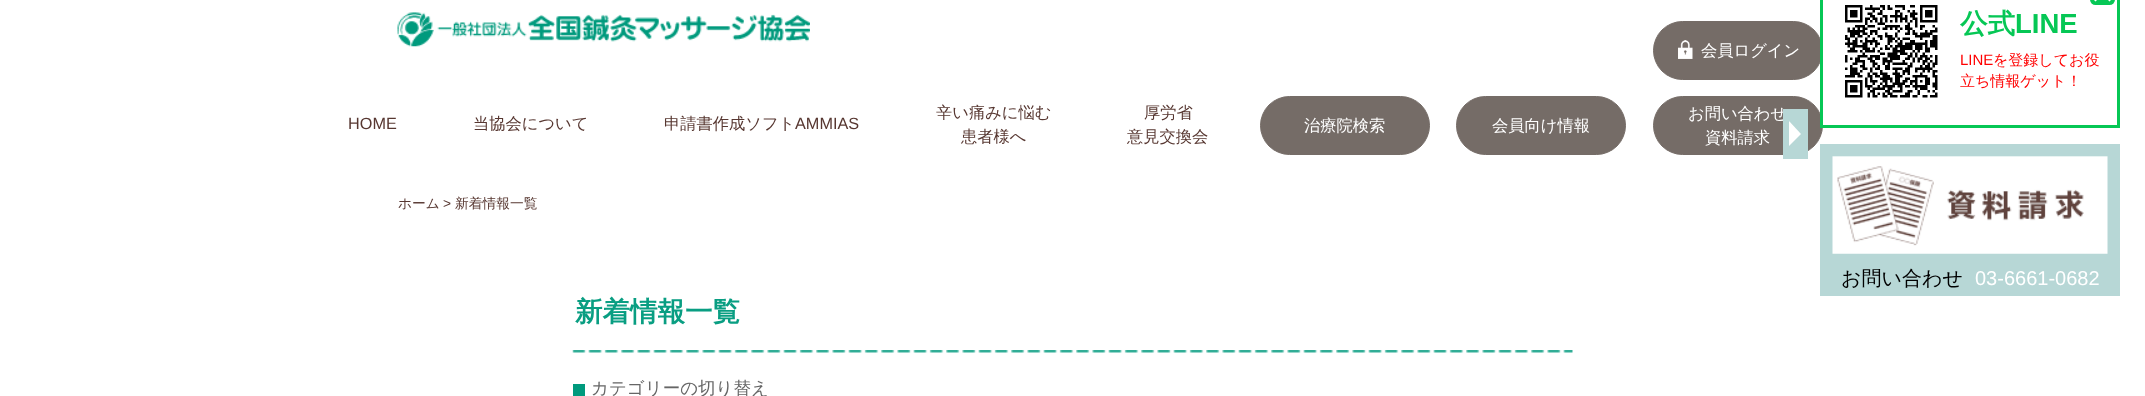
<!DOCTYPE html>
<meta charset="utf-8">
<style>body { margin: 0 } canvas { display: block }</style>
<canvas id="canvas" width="2145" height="396"></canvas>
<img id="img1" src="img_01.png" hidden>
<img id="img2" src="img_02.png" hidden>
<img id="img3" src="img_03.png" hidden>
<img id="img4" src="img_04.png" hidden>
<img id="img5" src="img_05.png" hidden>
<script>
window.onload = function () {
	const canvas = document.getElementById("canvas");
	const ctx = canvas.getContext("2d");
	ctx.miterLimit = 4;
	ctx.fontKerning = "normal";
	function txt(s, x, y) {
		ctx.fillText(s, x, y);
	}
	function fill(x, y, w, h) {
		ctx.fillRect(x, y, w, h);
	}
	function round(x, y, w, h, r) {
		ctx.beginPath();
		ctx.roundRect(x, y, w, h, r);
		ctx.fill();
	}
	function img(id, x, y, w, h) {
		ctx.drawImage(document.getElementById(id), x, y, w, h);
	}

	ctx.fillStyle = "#FFFFFF";
	fill(0, 0, 2145, 396);
	ctx.fillStyle = "#756C67";
	ctx.beginPath();
	ctx.roundRect(1653.5, 21.5, 169, 58, 29);
	ctx.fill();
	ctx.strokeStyle = "#756C67";
	ctx.stroke();
	ctx.beginPath();
	ctx.roundRect(1653.5, 96.5, 169, 58, 29);
	ctx.fill();
	ctx.stroke();
	ctx.strokeStyle = "#06C755";
	ctx.lineWidth = 3;
	ctx.strokeRect(1821.5, -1.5, 297, 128);
	ctx.fillStyle = "#06C755";
	round(2090, -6, 25, 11, 6);
	ctx.fillStyle = "#FFFFFF";
	ctx.beginPath();
	ctx.moveTo(2095.5, -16.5);
	ctx.lineTo(2111.5, -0.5);
	ctx.lineTo(2109.5, 1.5);
	ctx.lineTo(2093.5, -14.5);
	ctx.closePath();
	ctx.moveTo(2093.5, -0.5);
	ctx.lineTo(2109.5, -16.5);
	ctx.lineTo(2111.5, -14.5);
	ctx.lineTo(2095.5, 1.5);
	ctx.closePath();
	ctx.fill();
	img("img1", 1845, 5, 93, 93);
	img("img2", 397, 12, 413, 35);
	img("img3", 1678, 40, 15, 19);
	ctx.fillStyle = "#756C67";
	ctx.beginPath();
	ctx.roundRect(1260.5, 96.5, 169, 58, 29);
	ctx.fill();
	ctx.strokeStyle = "#756C67";
	ctx.lineWidth = 1;
	ctx.stroke();
	ctx.beginPath();
	ctx.roundRect(1456.5, 96.5, 169, 58, 29);
	ctx.fill();
	ctx.stroke();
	ctx.fillStyle = "#B7D7D6";
	fill(1820, 144, 300, 152);
	img("img4", 1832, 156, 276, 98);
	img("img5", 572, 350, 1001, 3);
	ctx.fillStyle = "#009A7D";
	fill(573, 384, 12, 12);
	ctx.font = "bold 27.5px WenQuanYi Zen Hei";
	ctx.fillStyle = "#06C755";
	txt("公式", 1960, 33);
	ctx.font = "bold 27.5px Liberation Sans";
	txt("LINE", 2015, 33);
	ctx.font = "15px Liberation Sans";
	ctx.fillStyle = "#FF0000";
	txt("LINE", 1960, 65);
	ctx.font = "500 15px WenQuanYi Zen Hei";
	txt("を登録してお役", 1993, 65);
	txt("立ち情報ゲット！", 1960, 86);
	ctx.font = "16.25px Liberation Sans";
	ctx.fillStyle = "#573731";
	txt("HOME", 348, 129);
	ctx.font = "500 16.25px WenQuanYi Zen Hei";
	txt("当協会について", 473, 129);
	txt("申請書作成ソフト", 664, 129);
	ctx.font = "16.25px Liberation Sans";
	txt("AMMIAS", 795, 129);
	ctx.font = "500 16.25px WenQuanYi Zen Hei";
	txt("辛い痛みに悩む", 936, 118);
	txt("患者様へ", 961, 142);
	txt("厚労省", 1144, 118);
	txt("意見交換会", 1127, 142);
	ctx.fillStyle = "#FFFFFF";
	txt("会員ログイン", 1701, 56);
	txt("治療院検索", 1304, 131);
	txt("会員向け情報", 1492, 131);
	txt("お問い合わせ", 1688, 119);
	txt("資料請求", 1705, 143);
	ctx.font = "500 20px WenQuanYi Zen Hei";
	ctx.fillStyle = "#000000";
	txt("お問い合わせ", 1841, 285);
	ctx.font = "20px Liberation Sans";
	ctx.fillStyle = "#FFFFFF";
	txt("03-6661-0682", 1975, 285);
	ctx.fillStyle = "#B7D7D6";
	fill(1783, 109, 25, 50);
	ctx.fillStyle = "#FFFFFF";
	ctx.beginPath();
	ctx.moveTo(1789, 146);
	ctx.lineTo(1789, 121);
	ctx.lineTo(1801, 134);
	ctx.closePath();
	ctx.fill();
	ctx.font = "500 13.75px WenQuanYi Zen Hei";
	ctx.fillStyle = "#573731";
	txt("ホーム", 398, 208);
	ctx.font = "13.75px Liberation Sans";
	txt(">", 443, 208);
	ctx.font = "500 13.75px WenQuanYi Zen Hei";
	txt("新着情報一覧", 455, 208);
	ctx.font = "bold 27.5px WenQuanYi Zen Hei";
	ctx.fillStyle = "#099E82";
	txt("新着情報一覧", 575, 321);
	ctx.font = "500 17.5px WenQuanYi Zen Hei";
	ctx.fillStyle = "#666666";
	txt("カテゴリーの切り替え", 591, 394);
};
</script>
